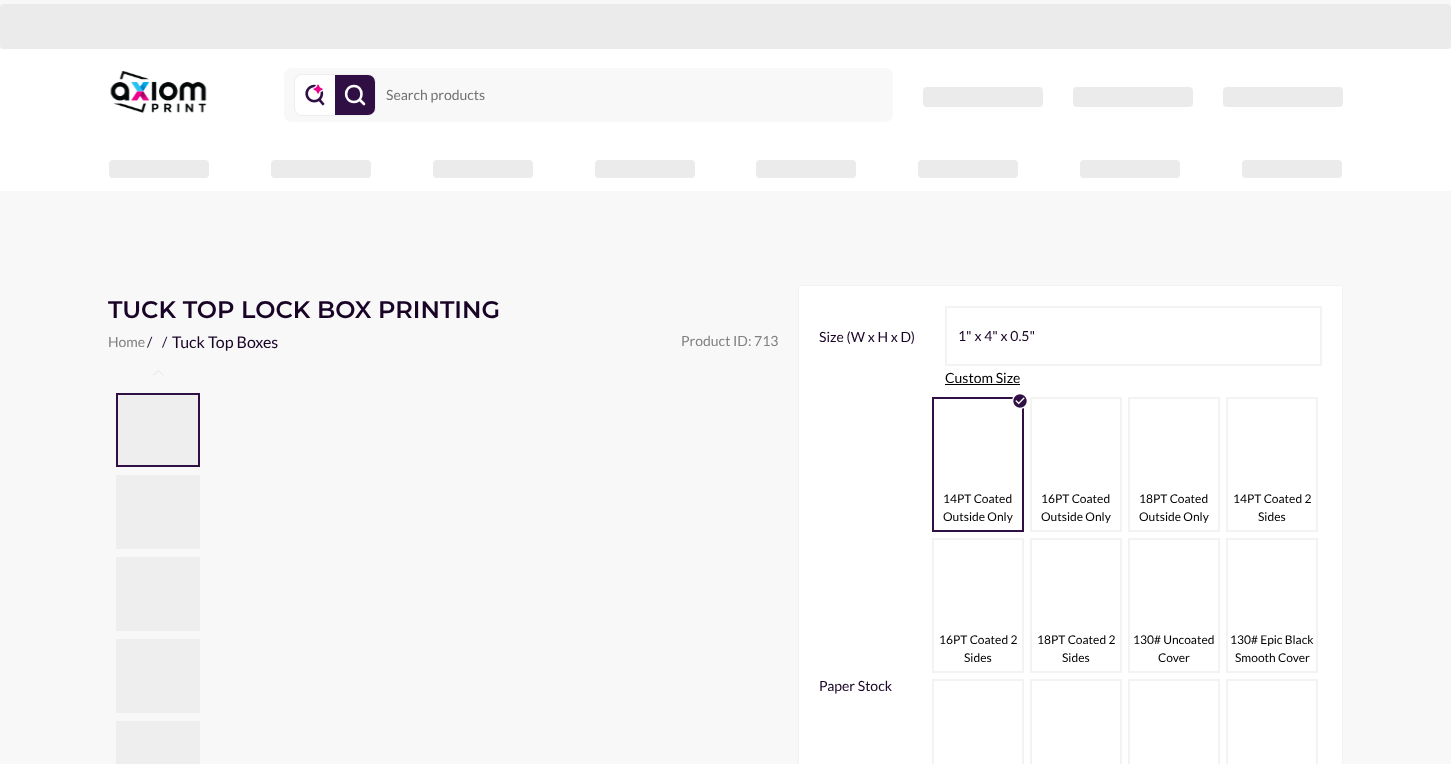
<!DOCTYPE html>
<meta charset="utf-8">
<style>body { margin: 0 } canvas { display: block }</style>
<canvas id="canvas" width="1451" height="764"></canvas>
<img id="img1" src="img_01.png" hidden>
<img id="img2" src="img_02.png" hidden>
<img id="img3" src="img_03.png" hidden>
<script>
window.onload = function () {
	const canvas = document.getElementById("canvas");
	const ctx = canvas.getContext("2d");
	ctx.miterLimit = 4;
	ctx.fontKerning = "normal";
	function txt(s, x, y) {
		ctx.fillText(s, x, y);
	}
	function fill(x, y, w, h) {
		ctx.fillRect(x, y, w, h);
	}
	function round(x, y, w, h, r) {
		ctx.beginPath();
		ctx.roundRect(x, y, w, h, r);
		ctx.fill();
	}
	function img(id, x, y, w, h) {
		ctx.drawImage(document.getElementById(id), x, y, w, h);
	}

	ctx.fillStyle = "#F8F8F9";
	fill(0, 0, 1451, 764);
	ctx.fillStyle = "#EBEBEB";
	round(0, 4, 1451, 45, 4);
	ctx.fillStyle = "#FFFFFF";
	fill(0, 49, 1451, 142);
	img("img1", 110, 71, 97, 42);
	ctx.fillStyle = "#F8F8F9";
	round(284, 68, 609, 54, 8);
	ctx.beginPath();
	ctx.roundRect(294.5, 74.5, 81, 41, 7.5);
	ctx.strokeStyle = "#EEEEEE";
	ctx.stroke();
	ctx.fillStyle = "#FFFFFF";
	ctx.beginPath();
	ctx.roundRect(295, 75, 40, 40, [7, 0, 0, 7]);
	ctx.fill();
	img("img2", 305, 84, 20, 22);
	ctx.fillStyle = "#300F45";
	ctx.beginPath();
	ctx.roundRect(335, 75, 40, 40, [0, 7, 7, 0]);
	ctx.fill();
	ctx.beginPath();
	ctx.moveTo(354, 102);
	ctx.bezierCurveTo(364, 102, 364, 86, 354, 86);
	ctx.bezierCurveTo(343.5, 86, 343.5, 102, 354, 102);
	ctx.closePath();
	ctx.moveTo(359.5, 99.5);
	ctx.lineTo(364, 104);
	ctx.strokeStyle = "#FFFFFF";
	ctx.lineWidth = 2.6;
	ctx.lineCap = "round";
	ctx.lineJoin = "round";
	ctx.stroke();
	ctx.fillStyle = "#EBEBEB";
	round(923, 87, 120, 20, 4);
	round(1073, 87, 120, 20, 4);
	round(1223, 87, 120, 20, 4);
	round(109, 160, 100, 18, 4);
	round(271, 160, 100, 18, 4);
	round(433, 160, 100, 18, 4);
	round(595, 160, 100, 18, 4);
	round(756, 160, 100, 18, 4);
	round(918, 160, 100, 18, 4);
	round(1080, 160, 100, 18, 4);
	round(1242, 160, 100, 18, 4);
	ctx.beginPath();
	ctx.moveTo(163.5, 375.5);
	ctx.lineTo(158.5, 370.5);
	ctx.lineTo(153.5, 375.5);
	ctx.strokeStyle = "#E4E4E5";
	ctx.lineWidth = 1;
	ctx.lineCap = "butt";
	ctx.lineJoin = "miter";
	ctx.stroke();
	ctx.fillStyle = "#EEEEEE";
	ctx.beginPath();
	ctx.rect(117, 394, 82, 72);
	ctx.fill();
	ctx.strokeStyle = "#300F45";
	ctx.lineWidth = 2;
	ctx.stroke();
	fill(116, 475, 84, 74);
	fill(116, 557, 84, 74);
	fill(116, 639, 84, 74);
	fill(116, 721, 84, 43);
	ctx.fillStyle = "#FFFFFF";
	ctx.beginPath();
	ctx.rect(798.5, 285.5, 544, 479);
	ctx.fill();
	ctx.strokeStyle = "#F3F3F3";
	ctx.lineWidth = 1;
	ctx.stroke();
	ctx.lineWidth = 2;
	ctx.strokeRect(946, 307, 375, 58);
	ctx.fillStyle = "#000000";
	fill(945, 384, 75, 1);
	ctx.strokeStyle = "#300F45";
	ctx.strokeRect(933, 398, 90, 133);
	ctx.fillStyle = "#FFFFFF";
	ctx.beginPath();
	ctx.arc(1020, 401, 8, 0, Math.PI * 2);
	ctx.fill();
	img("img3", 1013, 394, 14, 14);
	ctx.strokeStyle = "#F3F3F3";
	ctx.strokeRect(1031, 398, 90, 133);
	ctx.strokeRect(1129, 398, 90, 133);
	ctx.strokeRect(1227, 398, 90, 133);
	ctx.strokeRect(933, 539, 90, 133);
	ctx.strokeRect(1031, 539, 90, 133);
	ctx.strokeRect(1129, 539, 90, 133);
	ctx.strokeRect(1227, 539, 90, 133);
	ctx.strokeRect(933, 680, 90, 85);
	ctx.strokeRect(1031, 680, 90, 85);
	ctx.strokeRect(1129, 680, 90, 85);
	ctx.strokeRect(1227, 680, 90, 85);
	ctx.font = "14px Lato";
	ctx.fillStyle = "#717171";
	txt("Search products", 386, 100);
	ctx.font = "600 24px Montserrat";
	ctx.fillStyle = "#190326";
	txt("TUCK TOP LOCK BOX PRINTING", 108, 318);
	ctx.font = "14px Lato";
	ctx.fillStyle = "#818181";
	txt("Home", 108, 347);
	ctx.fillStyle = "#190326";
	txt("/", 147, 347);
	txt("/", 162, 347);
	ctx.font = "16px Lato";
	txt("Tuck Top Boxes", 172, 348);
	ctx.font = "14px Lato";
	ctx.fillStyle = "#818181";
	txt("Product ID: 713", 681, 346);
	ctx.fillStyle = "#190326";
	txt("Size (W x H x D)", 819, 342);
	txt("1\" x 4\" x 0.5\"", 958, 341);
	ctx.fillStyle = "#000000";
	txt("Custom Size", 945, 383);
	ctx.font = "12px Lato";
	txt("14PT Coated", 943, 503);
	txt("Outside Only", 943, 521);
	txt("16PT Coated", 1041, 503);
	txt("Outside Only", 1041, 521);
	txt("18PT Coated", 1139, 503);
	txt("Outside Only", 1139, 521);
	txt("14PT Coated 2", 1233, 503);
	txt("Sides", 1258, 521);
	txt("16PT Coated 2", 939, 644);
	txt("Sides", 964, 662);
	txt("18PT Coated 2", 1037, 644);
	txt("Sides", 1062, 662);
	txt("130# Uncoated", 1133, 644);
	txt("Cover", 1158, 662);
	txt("130# Epic Black", 1230, 644);
	txt("Smooth Cover", 1235, 662);
	ctx.font = "14px Lato";
	ctx.fillStyle = "#190326";
	txt("Paper Stock", 819, 691);
};
</script>
